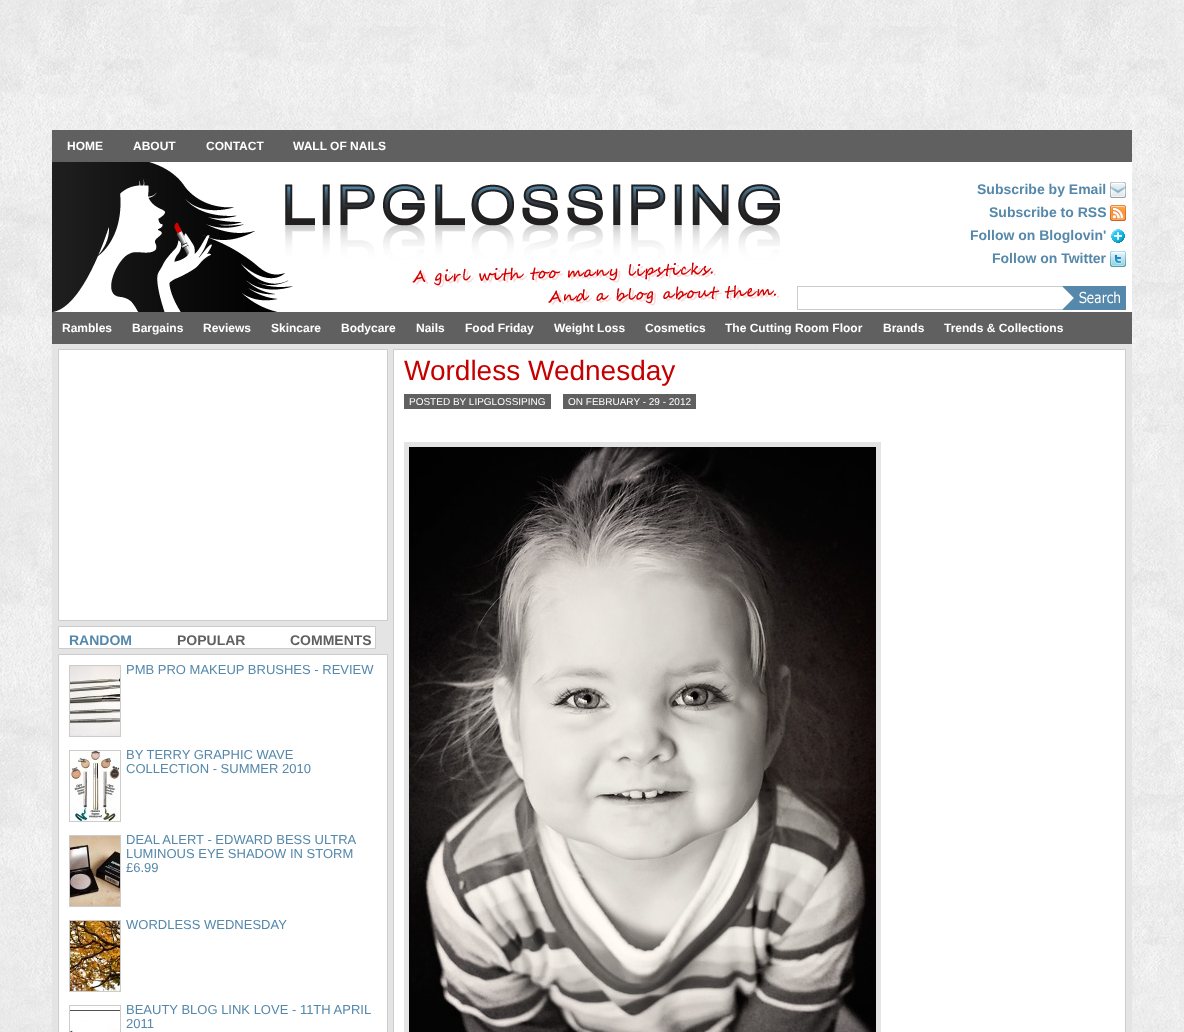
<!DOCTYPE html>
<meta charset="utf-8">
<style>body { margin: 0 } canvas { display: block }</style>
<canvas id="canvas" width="1184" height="1032"></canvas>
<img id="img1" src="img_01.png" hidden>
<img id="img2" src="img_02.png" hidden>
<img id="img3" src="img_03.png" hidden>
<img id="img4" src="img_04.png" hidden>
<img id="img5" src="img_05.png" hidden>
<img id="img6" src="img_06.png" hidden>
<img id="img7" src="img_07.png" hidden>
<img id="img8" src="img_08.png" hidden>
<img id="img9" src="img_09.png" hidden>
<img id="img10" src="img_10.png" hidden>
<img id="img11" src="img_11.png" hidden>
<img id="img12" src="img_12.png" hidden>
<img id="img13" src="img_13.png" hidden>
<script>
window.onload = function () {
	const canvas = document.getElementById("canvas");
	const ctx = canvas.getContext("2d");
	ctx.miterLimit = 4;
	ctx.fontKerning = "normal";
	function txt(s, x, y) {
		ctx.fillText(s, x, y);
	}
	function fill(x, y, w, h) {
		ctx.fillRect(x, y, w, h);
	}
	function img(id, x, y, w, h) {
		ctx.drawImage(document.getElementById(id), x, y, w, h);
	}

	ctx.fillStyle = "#FFFFFF";
	fill(0, 0, 1184, 1032);
	img("img1", 0, 0, 1184, 1032);
	ctx.fillStyle = "#606060";
	fill(52, 130, 1080, 214);
	ctx.fillStyle = "#FFFFFF";
	fill(780, 162, 352, 150);
	img("img2", 52, 162, 728, 150);
	img("img3", 1110, 182, 16, 16);
	img("img4", 1110, 205, 16, 16);
	img("img5", 1111, 229, 14, 14);
	img("img6", 1110, 251, 16, 16);
	ctx.fillStyle = "#CCCCCC";
	fill(797, 286, 265, 1);
	fill(797, 309, 265, 1);
	fill(797, 286, 1, 24);
	img("img7", 1062, 286, 64, 24);
	ctx.fillStyle = "#E4E4E4";
	fill(52, 344, 1080, 688);
	ctx.fillStyle = "#FFFFFF";
	ctx.beginPath();
	ctx.rect(393.5, 349.5, 732, 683);
	ctx.fill();
	ctx.strokeStyle = "#CCCCCC";
	ctx.stroke();
	ctx.fillStyle = "#606060";
	fill(404, 394, 147, 15);
	fill(563, 394, 133, 15);
	ctx.fillStyle = "#E4E4E4";
	fill(404, 442, 477, 590);
	img("img8", 409, 447, 467, 585);
	ctx.fillStyle = "#FFFFFF";
	ctx.beginPath();
	ctx.rect(58.5, 349.5, 329, 271);
	ctx.fill();
	ctx.stroke();
	ctx.beginPath();
	ctx.rect(58.5, 626.5, 317, 22);
	ctx.fill();
	ctx.stroke();
	ctx.beginPath();
	ctx.rect(58.5, 654.5, 329, 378);
	ctx.fill();
	ctx.stroke();
	ctx.fillStyle = "#CCCCCC";
	fill(69, 665, 52, 72);
	img("img9", 70, 666, 50, 70);
	fill(69, 750, 52, 72);
	img("img10", 70, 751, 50, 70);
	fill(69, 835, 52, 72);
	img("img11", 70, 836, 50, 70);
	fill(69, 920, 52, 72);
	img("img12", 70, 921, 50, 70);
	fill(69, 1005, 52, 27);
	img("img13", 70, 1006, 50, 26);
	ctx.font = "bold 12px Liberation Sans";
	ctx.fillStyle = "#FFFFFF";
	txt("HOME", 67, 150);
	txt("ABOUT", 133, 150);
	txt("CONTACT", 206, 150);
	txt("WALL OF NAILS", 293, 150);
	ctx.font = "bold 14px Liberation Sans";
	ctx.fillStyle = "#5588AA";
	txt("Subscribe by Email", 977, 194);
	txt("Subscribe to RSS", 989, 217);
	txt("Follow on Bloglovin'", 970, 240);
	txt("Follow on Twitter", 992, 263);
	ctx.font = "bold 12px Liberation Sans";
	ctx.fillStyle = "#FFFFFF";
	txt("Rambles", 62, 332);
	txt("Bargains", 132, 332);
	txt("Reviews", 203, 332);
	txt("Skincare", 271, 332);
	txt("Bodycare", 341, 332);
	txt("Nails", 416, 332);
	txt("Food Friday", 465, 332);
	txt("Weight Loss", 554, 332);
	txt("Cosmetics", 645, 332);
	txt("The Cutting Room Floor", 725, 332);
	txt("Brands", 883, 332);
	txt("Trends & Collections", 944, 332);
	ctx.font = "28px Liberation Sans";
	ctx.fillStyle = "#C50000";
	txt("Wordless Wednesday", 404, 380);
	ctx.font = "10px Liberation Sans";
	ctx.fillStyle = "#FFFFFF";
	txt("POSTED BY LIPGLOSSIPING", 409, 405);
	txt("ON FEBRUARY - 29 - 2012", 568, 405);
	ctx.font = "bold 14px Liberation Sans";
	ctx.fillStyle = "#5588AA";
	txt("RANDOM", 69, 645);
	ctx.fillStyle = "#606060";
	txt("POPULAR", 177, 645);
	txt("COMMENTS", 290, 645);
	ctx.font = "13px Liberation Sans";
	ctx.fillStyle = "#5588AA";
	txt("PMB PRO MAKEUP BRUSHES - REVIEW", 126, 674);
	txt("BY TERRY GRAPHIC WAVE", 126, 759);
	txt("COLLECTION - SUMMER 2010", 126, 773);
	txt("DEAL ALERT - EDWARD BESS ULTRA", 126, 844);
	txt("LUMINOUS EYE SHADOW IN STORM", 126, 858);
	txt("£6.99", 126, 872);
	txt("WORDLESS WEDNESDAY", 126, 929);
	txt("BEAUTY BLOG LINK LOVE - 11TH APRIL", 126, 1014);
	txt("2011", 126, 1028);
};
</script>
